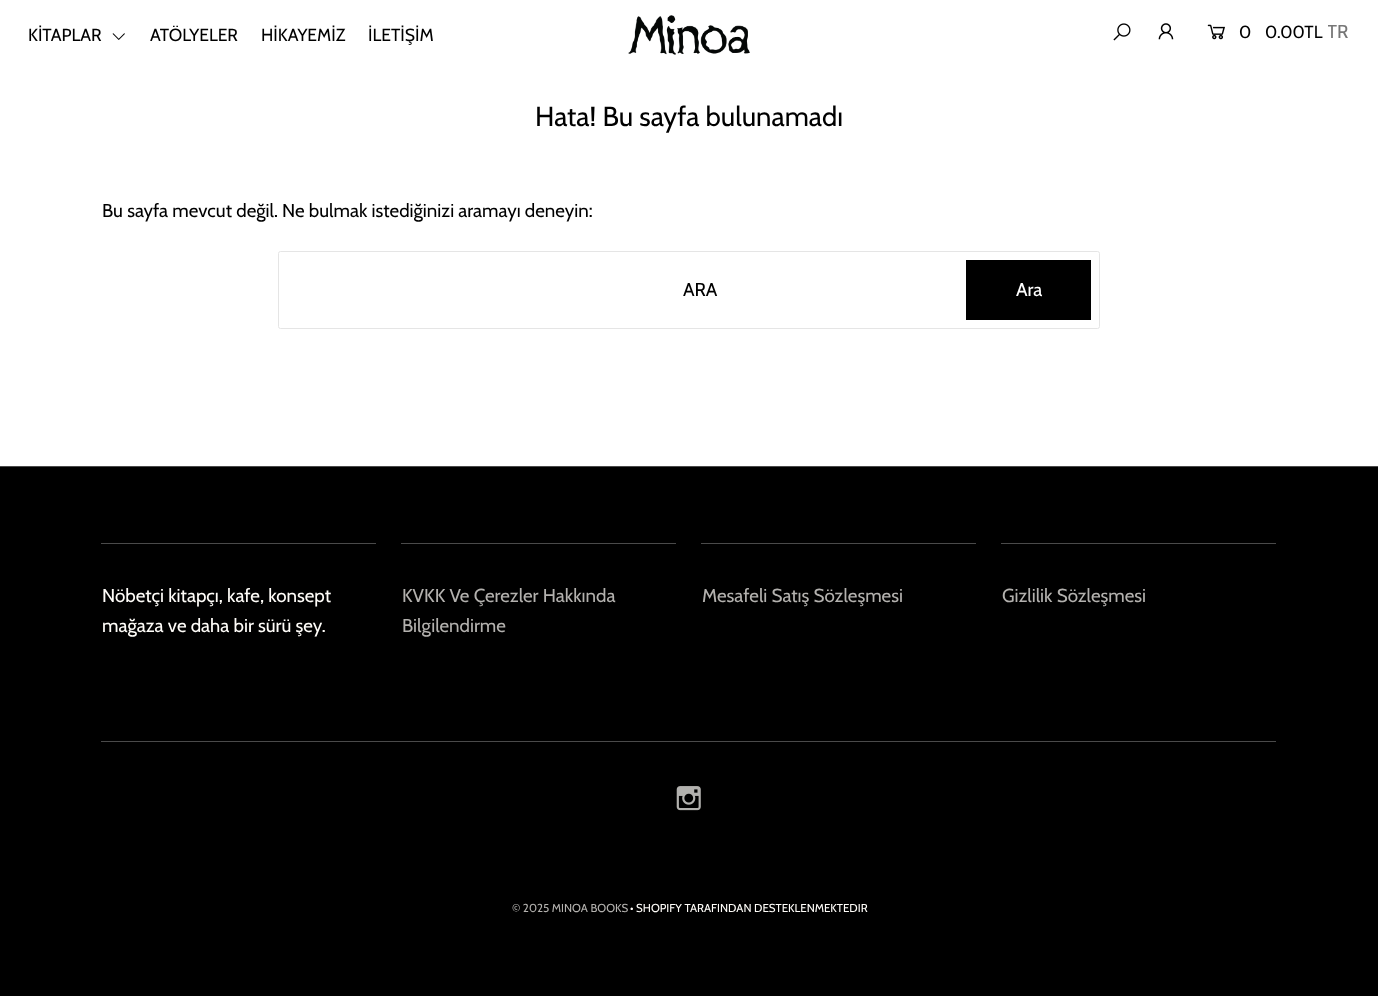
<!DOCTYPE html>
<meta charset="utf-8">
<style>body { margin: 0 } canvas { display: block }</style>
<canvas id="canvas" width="1378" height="996"></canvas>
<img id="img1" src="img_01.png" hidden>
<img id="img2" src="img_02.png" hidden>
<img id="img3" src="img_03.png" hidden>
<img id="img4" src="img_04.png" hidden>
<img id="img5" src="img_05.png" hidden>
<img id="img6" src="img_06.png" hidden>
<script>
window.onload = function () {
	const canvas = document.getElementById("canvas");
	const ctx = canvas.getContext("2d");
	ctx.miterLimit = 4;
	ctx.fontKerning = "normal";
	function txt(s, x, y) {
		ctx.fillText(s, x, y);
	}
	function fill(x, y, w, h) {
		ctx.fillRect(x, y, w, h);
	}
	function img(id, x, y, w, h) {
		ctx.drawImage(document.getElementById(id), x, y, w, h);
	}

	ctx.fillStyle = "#FFFFFF";
	fill(0, 0, 1378, 996);
	img("img1", 112, 33, 13, 7);
	img("img2", 628, 15, 122, 40);
	img("img3", 1113, 23, 18, 18);
	img("img4", 1158, 23, 16, 17);
	img("img5", 1207, 24, 18, 16);
	ctx.beginPath();
	ctx.roundRect(278.5, 251.5, 821, 77, 2);
	ctx.strokeStyle = "#E5E5E5";
	ctx.stroke();
	ctx.fillStyle = "#000000";
	fill(966, 260, 125, 60);
	fill(0, 467, 1378, 529);
	ctx.fillStyle = "#4A4A4A";
	fill(0, 466, 1378, 1);
	fill(101, 543, 275, 1);
	fill(401, 543, 275, 1);
	fill(701, 543, 275, 1);
	fill(1001, 543, 275, 1);
	fill(101, 741, 1175, 1);
	img("img6", 676, 786, 25, 25);
	ctx.font = "17.5px Cabin";
	ctx.fillStyle = "#000000";
	txt("KİTAPLAR", 28, 41);
	txt("ATÖLYELER", 150, 41);
	txt("HİKAYEMİZ", 261, 41);
	txt("İLETİŞİM", 368, 41);
	txt("0", 1239, 38);
	txt("0.00TL", 1265, 38);
	ctx.save();
	ctx.beginPath();
	ctx.rect(1328, 20, 23, 23);
	ctx.clip();
	ctx.font = "18.75px Cabin";
	ctx.fillStyle = "#777777";
	txt("TR", 1327, 38);
	ctx.restore();
	ctx.font = "27.5px Cabin";
	txt("Hata! Bu sayfa bulunamadı", 535, 126);
	ctx.font = "18.75px Cabin";
	txt("Bu sayfa mevcut değil. Ne bulmak istediğinizi aramayı deneyin:", 102, 217);
	txt("ARA", 683, 296);
	ctx.fillStyle = "#FFFFFF";
	txt("Ara", 1016, 296);
	ctx.fillStyle = "#FFFDF9";
	txt("Nöbetçi kitapçı, kafe, konsept", 102, 602);
	txt("mağaza ve daha bir sürü şey.", 102, 632);
	ctx.fillStyle = "#B3B1AE";
	txt("KVKK Ve Çerezler Hakkında", 402, 602);
	txt("Bilgilendirme", 402, 632);
	txt("Mesafeli Satış Sözleşmesi", 702, 602);
	txt("Gizlilik Sözleşmesi", 1002, 602);
	ctx.font = "11.5px Cabin";
	txt("© 2025 MINOA BOOKS", 512, 912);
	ctx.fillStyle = "#FFFDF9";
	txt("• SHOPIFY TARAFINDAN DESTEKLENMEKTEDIR", 630, 912);
};
</script>
